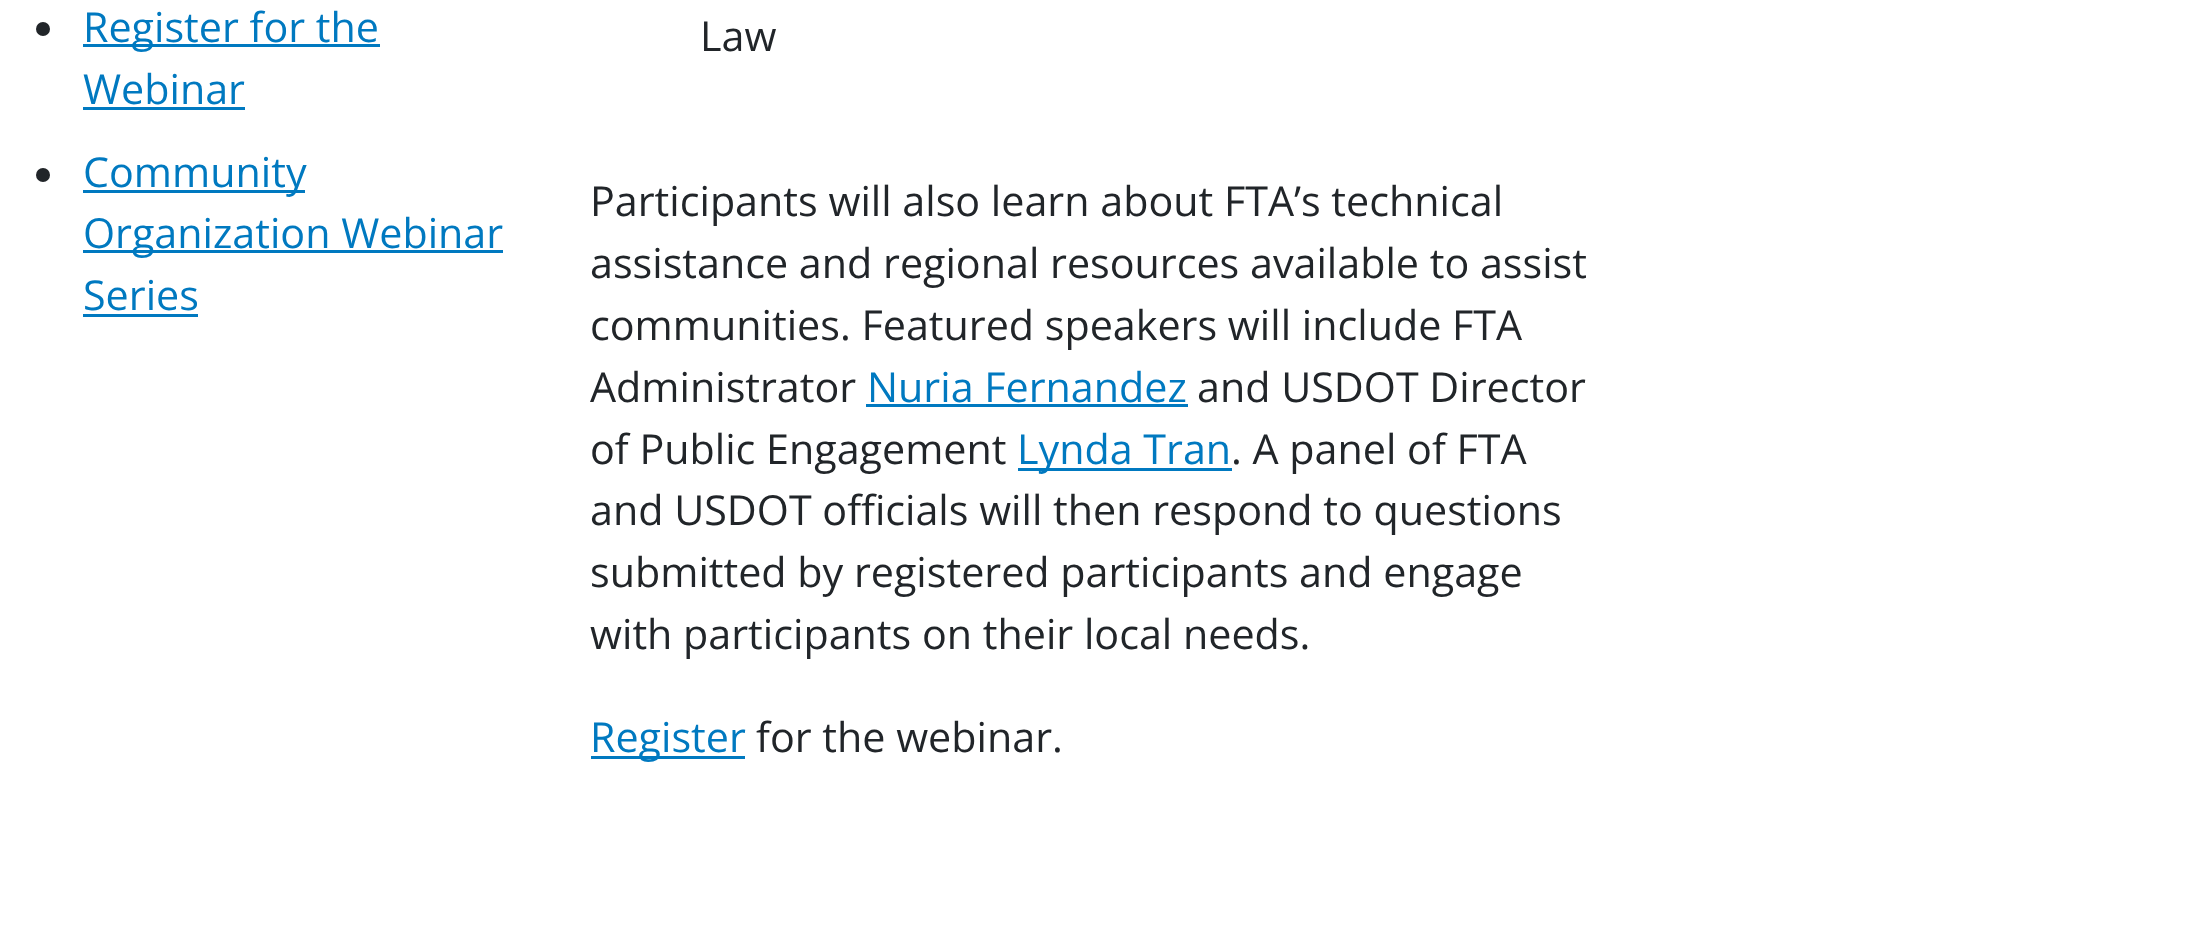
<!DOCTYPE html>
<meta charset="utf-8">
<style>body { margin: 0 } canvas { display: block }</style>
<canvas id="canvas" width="2193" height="929"></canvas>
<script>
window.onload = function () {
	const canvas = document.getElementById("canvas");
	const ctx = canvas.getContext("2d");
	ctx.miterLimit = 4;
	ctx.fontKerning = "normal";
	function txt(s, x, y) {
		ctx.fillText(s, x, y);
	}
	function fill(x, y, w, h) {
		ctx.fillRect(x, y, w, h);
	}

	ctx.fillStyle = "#FFFFFF";
	fill(0, 0, 2193, 929);
	ctx.fillStyle = "#212529";
	ctx.beginPath();
	ctx.arc(43, 29, 7, 0, Math.PI * 2);
	ctx.fill();
	ctx.fillStyle = "#0079C0";
	fill(83, 44, 297, 3);
	fill(83, 107, 162, 3);
	ctx.fillStyle = "#212529";
	ctx.beginPath();
	ctx.arc(43, 175, 7, 0, Math.PI * 2);
	ctx.fill();
	ctx.fillStyle = "#0079C0";
	fill(83, 190, 222, 3);
	fill(83, 250, 420, 3);
	fill(83, 314, 115, 3);
	fill(866, 404, 322, 3);
	fill(1018, 468, 214, 3);
	fill(591, 756, 154, 3);
	ctx.font = "41.25px Open Sans";
	txt("Register for the", 83, 42);
	txt("Webinar", 83, 104);
	txt("Community", 83, 187);
	txt("Organization Webinar", 83, 248);
	txt("Series", 83, 310);
	ctx.fillStyle = "#212529";
	txt("Law", 700, 51);
	txt("Participants will also learn about FTA’s technical", 590, 216);
	txt("assistance and regional resources available to assist", 590, 278);
	txt("communities. Featured speakers will include FTA", 590, 340);
	txt("Administrator", 590, 402);
	ctx.fillStyle = "#0079C0";
	txt("Nuria Fernandez", 867, 402);
	ctx.fillStyle = "#212529";
	txt("and USDOT Director", 1197, 402);
	txt("of Public Engagement", 590, 464);
	ctx.fillStyle = "#0079C0";
	txt("Lynda Tran", 1017, 464);
	ctx.fillStyle = "#212529";
	txt(". A panel of FTA", 1231, 464);
	txt("and USDOT officials will then respond to questions", 590, 525);
	txt("submitted by registered participants and engage", 590, 587);
	txt("with participants on their local needs.", 590, 649);
	ctx.fillStyle = "#0079C0";
	txt("Register", 590, 752);
	ctx.fillStyle = "#212529";
	txt("for the webinar.", 756, 752);
};
</script>
